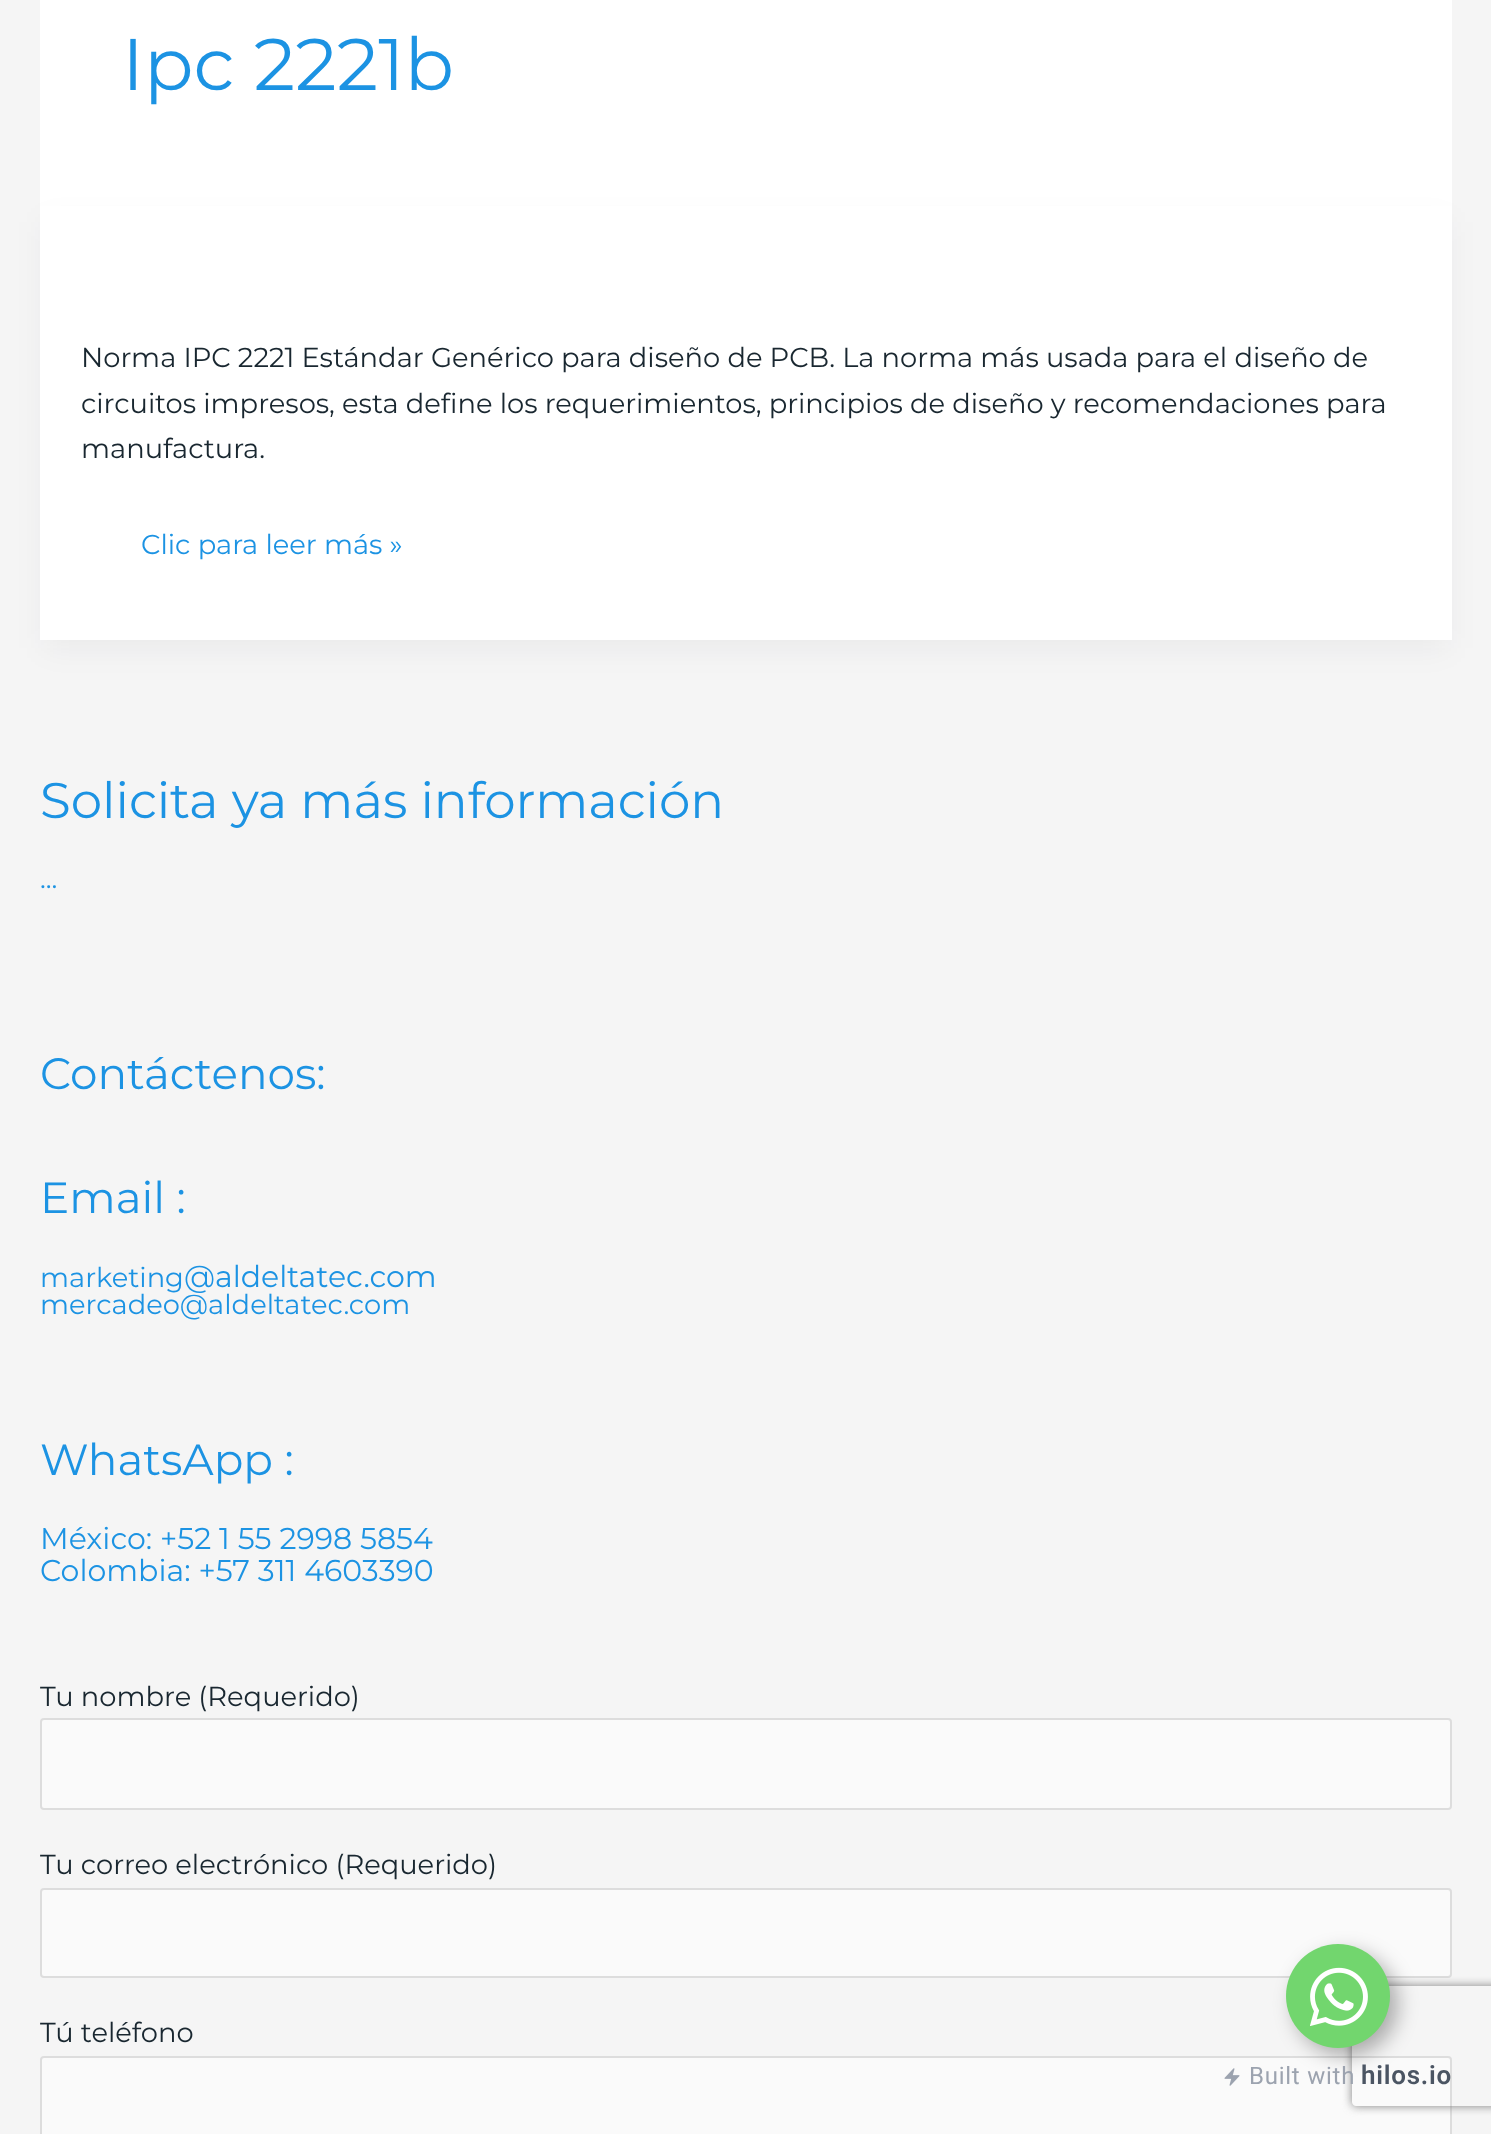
<!DOCTYPE html>
<meta charset="utf-8">
<style>body { margin: 0 } canvas { display: block }</style>
<canvas id="canvas" width="1491" height="2134"></canvas>
<img id="img1" src="img_01.png" hidden>
<img id="img2" src="img_02.png" hidden>
<script>
window.onload = function () {
	const canvas = document.getElementById("canvas");
	const ctx = canvas.getContext("2d");
	ctx.miterLimit = 4;
	ctx.fontKerning = "normal";
	function txt(s, x, y) {
		ctx.fillText(s, x, y);
	}
	function fill(x, y, w, h) {
		ctx.fillRect(x, y, w, h);
	}
	function img(id, x, y, w, h) {
		ctx.drawImage(document.getElementById(id), x, y, w, h);
	}

	ctx.fillStyle = "#F5F5F5";
	fill(0, 0, 1491, 2134);
	ctx.fillStyle = "#FFFFFF";
	fill(40, 0, 1412, 206);
	ctx.fillStyle = "rgba(16, 24, 40, 0.05)";
	ctx.filter = "blur(15px)";
	ctx.beginPath();
	ctx.rect(44, 222, 1404, 426);
	ctx.fill();
	ctx.filter = "none";
	ctx.fillStyle = "#FFFFFF";
	fill(40, 206, 1412, 434);
	ctx.fillStyle = "#FAFAFA";
	ctx.beginPath();
	ctx.roundRect(41, 1719, 1410, 90, 3);
	ctx.fill();
	ctx.strokeStyle = "#DDDDDD";
	ctx.lineWidth = 2;
	ctx.stroke();
	ctx.beginPath();
	ctx.roundRect(41, 1889, 1410, 88, 3);
	ctx.fill();
	ctx.stroke();
	ctx.beginPath();
	ctx.roundRect(41, 2057, 1410, 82, 3);
	ctx.fill();
	ctx.stroke();
	ctx.save();
	ctx.beginPath();
	ctx.moveTo(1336, 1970);
	ctx.lineTo(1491, 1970);
	ctx.lineTo(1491, 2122);
	ctx.lineTo(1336, 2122);
	ctx.closePath();
	ctx.moveTo(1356, 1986);
	ctx.lineTo(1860, 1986);
	ctx.bezierCurveTo(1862, 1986, 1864, 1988, 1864, 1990);
	ctx.lineTo(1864, 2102);
	ctx.bezierCurveTo(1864, 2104, 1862, 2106, 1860, 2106);
	ctx.lineTo(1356, 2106);
	ctx.bezierCurveTo(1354, 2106, 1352, 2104, 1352, 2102);
	ctx.lineTo(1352, 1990);
	ctx.bezierCurveTo(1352, 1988, 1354, 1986, 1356, 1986);
	ctx.closePath();
	ctx.clip("evenodd");
	ctx.fillStyle = "#808080";
	ctx.filter = "blur(5px)";
	ctx.beginPath();
	ctx.roundRect(1352, 1986, 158, 120, 4);
	ctx.fill();
	ctx.filter = "none";
	ctx.restore();
	ctx.fillStyle = "rgba(0, 0, 0, 0.3)";
	ctx.filter = "blur(10px)";
	ctx.beginPath();
	ctx.roundRect(1294, 1952, 104, 104, 52);
	ctx.fill();
	ctx.filter = "none";
	ctx.fillStyle = "#72D66E";
	ctx.beginPath();
	ctx.arc(1338, 1996, 52, 0, Math.PI * 2);
	ctx.fill();
	img("img1", 1310, 1967, 58, 59);
	img("img2", 1224, 2068, 16, 18);
	ctx.font = "100 73px Montserrat";
	ctx.fillStyle = "#1C93E3";
	txt("Ipc 2221b", 122, 90);
	ctx.font = "100 27.35px Montserrat";
	ctx.fillStyle = "#192730";
	txt("Norma IPC 2221 Estándar Genérico para diseño de PCB. La norma más usada para el diseño de", 81, 367);
	txt("circuitos impresos, esta define los requerimientos, principios de diseño y recomendaciones para", 81, 413);
	txt("manufactura.", 81, 458);
	ctx.fillStyle = "#1C93E3";
	txt("Clic para leer más »", 141, 554);
	ctx.font = "100 50px Montserrat";
	txt("Solicita ya más información", 40, 818);
	ctx.font = "100 27.35px Montserrat";
	txt("...", 40, 888);
	ctx.font = "100 43.75px Montserrat";
	txt("Contáctenos:", 40, 1089);
	txt("Email :", 40, 1213);
	ctx.font = "100 27.35px Montserrat";
	txt("marketing", 40, 1287);
	ctx.font = "100 30px Montserrat";
	txt("@aldeltatec.com", 184, 1287);
	ctx.font = "100 27.35px Montserrat";
	txt("mercadeo@aldeltatec.com", 40, 1314);
	ctx.font = "100 43.75px Montserrat";
	txt("WhatsApp :", 40, 1475);
	ctx.font = "100 30px Montserrat";
	txt("México: +52 1 55 2998 5854", 40, 1549);
	txt("Colombia: +57 311 4603390", 40, 1581);
	ctx.font = "100 27.35px Montserrat";
	ctx.fillStyle = "#192730";
	txt("Tu nombre (Requerido)", 40, 1706);
	txt("Tu correo electrónico (Requerido)", 40, 1874);
	txt("Tú teléfono", 40, 2042);
	ctx.letterSpacing = "0.75px";
	ctx.font = "24px Roboto";
	ctx.fillStyle = "#9CA3AF";
	txt("Built with", 1249, 2084);
	ctx.font = "600 26px Roboto";
	ctx.fillStyle = "#4B5563";
	txt("hilos.io", 1361, 2084);
};
</script>
